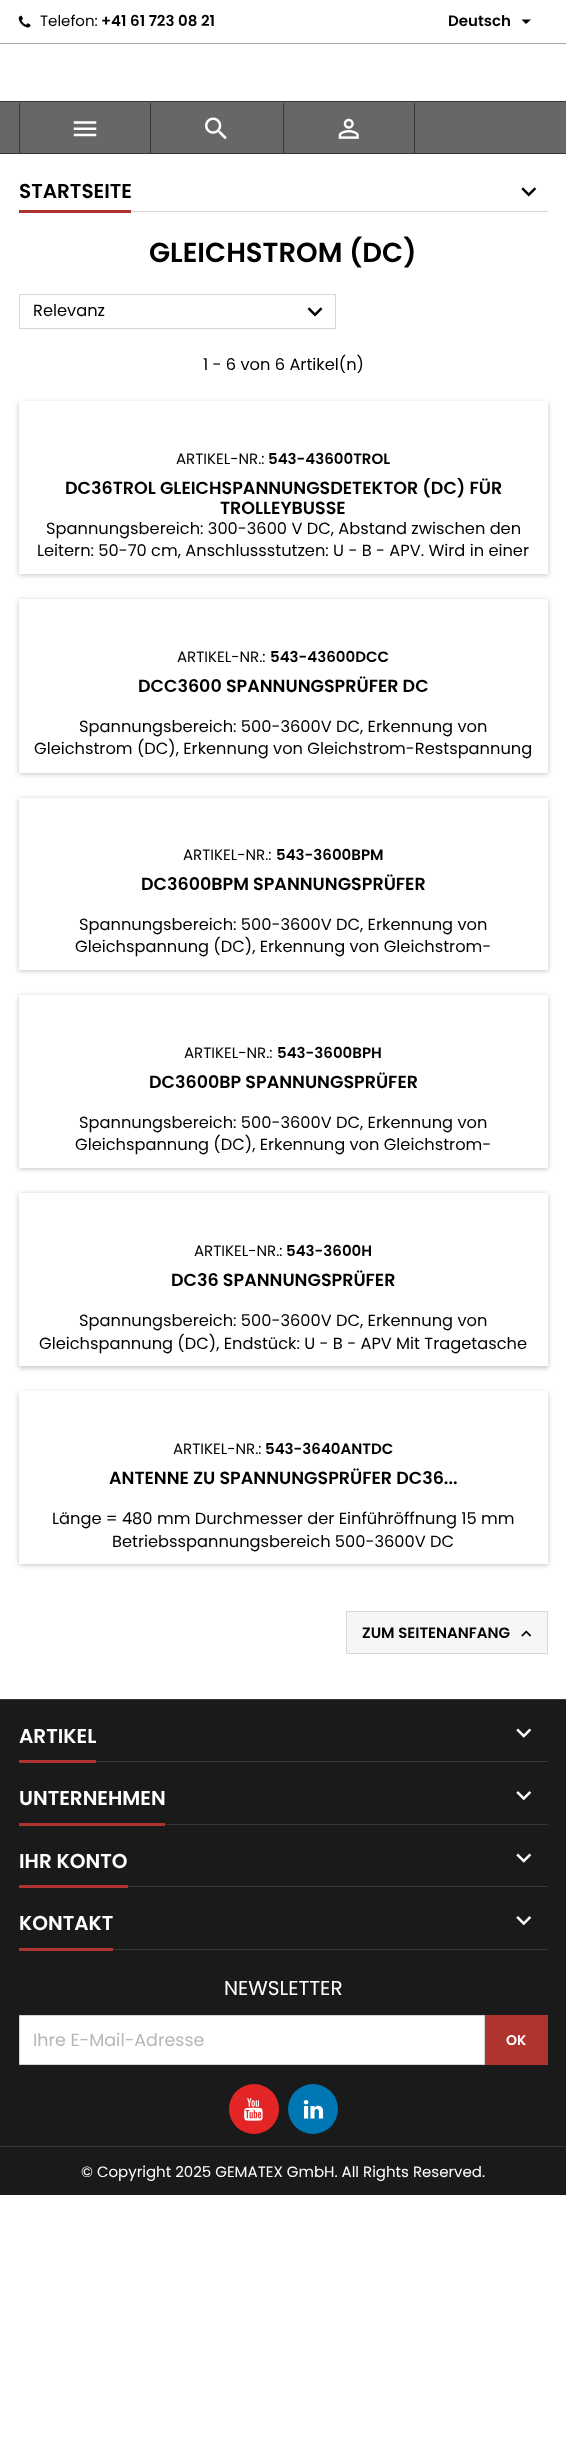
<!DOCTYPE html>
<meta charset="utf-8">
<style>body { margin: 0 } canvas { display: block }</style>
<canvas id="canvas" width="566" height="2464"></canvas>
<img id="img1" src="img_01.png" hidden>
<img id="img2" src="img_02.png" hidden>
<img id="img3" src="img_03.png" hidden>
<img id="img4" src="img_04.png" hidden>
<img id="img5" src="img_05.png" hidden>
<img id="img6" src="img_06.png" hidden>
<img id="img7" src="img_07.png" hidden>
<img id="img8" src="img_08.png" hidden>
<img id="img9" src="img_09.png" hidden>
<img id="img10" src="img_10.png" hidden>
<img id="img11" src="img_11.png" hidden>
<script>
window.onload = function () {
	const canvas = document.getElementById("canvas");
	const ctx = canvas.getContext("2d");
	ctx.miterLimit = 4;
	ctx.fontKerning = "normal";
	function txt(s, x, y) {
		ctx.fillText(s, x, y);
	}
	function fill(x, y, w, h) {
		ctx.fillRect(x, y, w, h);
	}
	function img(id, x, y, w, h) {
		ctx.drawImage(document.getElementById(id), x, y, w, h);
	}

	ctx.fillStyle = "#FFFFFF";
	fill(0, 0, 566, 2464);
	ctx.fillStyle = "#A6A6A6";
	fill(0, 43, 566, 1);
	img("img1", 18, 15, 13, 13);
	ctx.fillStyle = "#000000";
	ctx.beginPath();
	ctx.moveTo(521.5, 19.5);
	ctx.lineTo(531, 19.5);
	ctx.lineTo(526, 24);
	ctx.closePath();
	ctx.fill();
	ctx.fillStyle = "#676766";
	fill(0, 102, 566, 51);
	ctx.fillStyle = "#363636";
	fill(0, 101, 566, 1);
	fill(0, 153, 566, 1);
	fill(150, 103, 1, 50);
	fill(19, 103, 1, 50);
	img("img2", 73, 121, 24, 16);
	fill(283, 103, 1, 50);
	img("img3", 205, 117, 22, 23);
	fill(414, 103, 1, 50);
	img("img4", 338, 118, 21, 21);
	ctx.fillStyle = "#D6D4D4";
	fill(131, 211, 417, 1);
	ctx.fillStyle = "#B0342E";
	fill(19, 210, 112, 3);
	img("img5", 521, 187, 16, 10);
	ctx.strokeStyle = "#D6D4D4";
	ctx.strokeRect(19.5, 294.5, 316, 34);
	img("img6", 307, 307, 16, 10);
	ctx.fillStyle = "rgba(0, 0, 0, 0.24)";
	ctx.filter = "blur(2.5px)";
	ctx.beginPath();
	ctx.rect(19, 403, 529, 172);
	ctx.fill();
	ctx.filter = "none";
	ctx.fillStyle = "#FFFFFF";
	fill(19, 401, 529, 173);
	ctx.fillStyle = "rgba(0, 0, 0, 0.24)";
	ctx.filter = "blur(2.5px)";
	ctx.beginPath();
	ctx.rect(19, 600, 529, 174);
	ctx.fill();
	ctx.filter = "none";
	ctx.fillStyle = "#FFFFFF";
	fill(19, 599, 529, 174);
	ctx.fillStyle = "rgba(0, 0, 0, 0.24)";
	ctx.filter = "blur(2.5px)";
	ctx.beginPath();
	ctx.rect(19, 799, 529, 172);
	ctx.fill();
	ctx.filter = "none";
	ctx.fillStyle = "#FFFFFF";
	fill(19, 798, 529, 172);
	ctx.fillStyle = "rgba(0, 0, 0, 0.24)";
	ctx.filter = "blur(2.5px)";
	ctx.beginPath();
	ctx.rect(19, 996, 529, 173);
	ctx.fill();
	ctx.filter = "none";
	ctx.fillStyle = "#FFFFFF";
	fill(19, 995, 529, 173);
	ctx.fillStyle = "rgba(0, 0, 0, 0.24)";
	ctx.filter = "blur(2.5px)";
	ctx.beginPath();
	ctx.rect(19, 1194, 529, 174);
	ctx.fill();
	ctx.filter = "none";
	ctx.fillStyle = "#FFFFFF";
	fill(19, 1193, 529, 173);
	ctx.fillStyle = "rgba(0, 0, 0, 0.24)";
	ctx.filter = "blur(2.5px)";
	ctx.beginPath();
	ctx.rect(19, 1393, 529, 172);
	ctx.fill();
	ctx.filter = "none";
	ctx.fillStyle = "#FFFFFF";
	fill(19, 1391, 529, 173);
	ctx.fillStyle = "#F6F6F6";
	ctx.beginPath();
	ctx.rect(346.5, 1611.5, 201, 42);
	ctx.fill();
	ctx.strokeStyle = "#D8D8D8";
	ctx.stroke();
	img("img7", 521, 1630, 11, 7);
	ctx.fillStyle = "#1B1A1B";
	fill(0, 1700, 566, 446);
	ctx.fillStyle = "#363636";
	fill(0, 1699, 566, 1);
	fill(96, 1761, 452, 1);
	ctx.fillStyle = "#B0342E";
	fill(19, 1760, 77, 3);
	img("img8", 516, 1728, 16, 10);
	ctx.fillStyle = "#363636";
	fill(165, 1824, 383, 1);
	ctx.fillStyle = "#B0342E";
	fill(19, 1823, 146, 3);
	img("img9", 516, 1791, 16, 10);
	ctx.fillStyle = "#363636";
	fill(128, 1886, 420, 1);
	ctx.fillStyle = "#B0342E";
	fill(19, 1885, 109, 3);
	img("img8", 516, 1853, 16, 10);
	ctx.fillStyle = "#363636";
	fill(113, 1949, 435, 1);
	ctx.fillStyle = "#B0342E";
	fill(19, 1948, 94, 3);
	img("img9", 516, 1916, 16, 10);
	ctx.fillStyle = "#FFFFFF";
	ctx.beginPath();
	ctx.rect(19.5, 2015.5, 465, 49);
	ctx.fill();
	ctx.strokeStyle = "#D6D4D4";
	ctx.stroke();
	ctx.fillStyle = "#B0342E";
	fill(485, 2015, 63, 50);
	ctx.fillStyle = "#E42526";
	ctx.beginPath();
	ctx.arc(254, 2109, 25, 0, Math.PI * 2);
	ctx.fill();
	img("img10", 244, 2098, 19, 23);
	ctx.fillStyle = "#0077B5";
	ctx.beginPath();
	ctx.arc(313, 2109, 25, 0, Math.PI * 2);
	ctx.fill();
	img("img11", 303, 2100, 21, 19);
	ctx.fillStyle = "#1B1A1B";
	fill(0, 2147, 566, 48);
	ctx.fillStyle = "#363636";
	fill(0, 2146, 566, 1);
	ctx.font = "15px Poppins";
	ctx.fillStyle = "#000000";
	txt("Telefon:", 40, 26);
	ctx.font = "600 15px Poppins";
	txt("+41 61 723 08 21", 101, 26);
	txt("Deutsch", 448, 26);
	ctx.font = "600 20px Poppins";
	txt("STARTSEITE", 19, 198);
	ctx.font = "600 27.5px Poppins";
	txt("GLEICHSTROM (DC)", 149, 262);
	ctx.font = "16.25px Poppins";
	txt("Relevanz", 33, 316);
	txt("1 - 6 von 6 Artikel(n)", 203, 370);
	ctx.font = "15px Poppins";
	txt("ARTIKEL-NR.:", 176, 464);
	ctx.font = "600 15px Poppins";
	txt("543-43600TROL", 268, 464);
	ctx.save();
	ctx.beginPath();
	ctx.rect(30, 478, 506, 40);
	ctx.clip();
	ctx.font = "600 17.5px Poppins";
	txt("DC36TROL GLEICHSPANNUNGSDETEKTOR (DC) FÜR", 65, 494);
	ctx.restore();
	ctx.font = "600 17.5px Poppins";
	txt("TROLLEYBUSSE", 220, 514);
	ctx.font = "16.25px Poppins";
	txt("Spannungsbereich: 300-3600 V DC, Abstand zwischen den", 46, 534);
	txt("Leitern: 50-70 cm, Anschlussstutzen: U - B - APV. Wird in einer", 37, 556);
	ctx.font = "15px Poppins";
	txt("ARTIKEL-NR.:", 177, 662);
	ctx.font = "600 15px Poppins";
	txt("543-43600DCC", 270, 662);
	ctx.font = "600 17.5px Poppins";
	txt("DCC3600 SPANNUNGSPRÜFER DC", 138, 692);
	ctx.font = "16.25px Poppins";
	txt("Spannungsbereich: 500-3600V DC, Erkennung von", 79, 732);
	txt("Gleichstrom (DC), Erkennung von Gleichstrom-Restspannung", 34, 754);
	ctx.font = "15px Poppins";
	txt("ARTIKEL-NR.:", 183, 860);
	ctx.font = "600 15px Poppins";
	txt("543-3600BPM", 276, 860);
	ctx.font = "600 17.5px Poppins";
	txt("DC3600BPM SPANNUNGSPRÜFER", 141, 890);
	ctx.font = "16.25px Poppins";
	txt("Spannungsbereich: 500-3600V DC, Erkennung von", 79, 930);
	txt("Gleichspannung (DC), Erkennung von Gleichstrom-", 75, 952);
	ctx.font = "15px Poppins";
	txt("ARTIKEL-NR.:", 184, 1058);
	ctx.font = "600 15px Poppins";
	txt("543-3600BPH", 277, 1058);
	ctx.font = "600 17.5px Poppins";
	txt("DC3600BP SPANNUNGSPRÜFER", 149, 1088);
	ctx.font = "16.25px Poppins";
	txt("Spannungsbereich: 500-3600V DC, Erkennung von", 79, 1128);
	txt("Gleichspannung (DC), Erkennung von Gleichstrom-", 75, 1150);
	ctx.font = "15px Poppins";
	txt("ARTIKEL-NR.:", 194, 1256);
	ctx.font = "600 15px Poppins";
	txt("543-3600H", 286, 1256);
	ctx.font = "600 17.5px Poppins";
	txt("DC36 SPANNUNGSPRÜFER", 171, 1286);
	ctx.font = "16.25px Poppins";
	txt("Spannungsbereich: 500-3600V DC, Erkennung von", 79, 1326);
	txt("Gleichspannung (DC), Endstück: U - B - APV Mit Tragetasche", 39, 1349);
	ctx.font = "15px Poppins";
	txt("ARTIKEL-NR.:", 173, 1454);
	ctx.font = "600 15px Poppins";
	txt("543-3640ANTDC", 265, 1454);
	ctx.font = "600 17.5px Poppins";
	txt("ANTENNE ZU SPANNUNGSPRÜFER DC36...", 109, 1484);
	ctx.font = "16.25px Poppins";
	txt("Länge = 480 mm Durchmesser der Einführöffnung 15 mm", 52, 1524);
	txt("Betriebsspannungsbereich 500-3600V DC", 112, 1547);
	ctx.font = "600 15px Poppins";
	txt("ZUM SEITENANFANG", 362, 1638);
	ctx.font = "600 20px Poppins";
	ctx.fillStyle = "#FFFFFF";
	txt("ARTIKEL", 19, 1743);
	txt("UNTERNEHMEN", 19, 1805);
	txt("IHR KONTO", 19, 1868);
	txt("KONTAKT", 19, 1930);
	ctx.font = "20px Poppins";
	txt("NEWSLETTER", 224, 1995);
	ctx.font = "17.5px Poppins";
	ctx.fillStyle = "#B7B7B7";
	txt("Ihre E-Mail-Adresse", 33, 2046);
	ctx.font = "600 14px Poppins";
	ctx.fillStyle = "#FFFFFF";
	txt("OK", 506, 2045);
	ctx.font = "15px Poppins";
	txt("© Copyright 2025 GEMATEX GmbH. All Rights Reserved.", 81, 2177);
};
</script>
